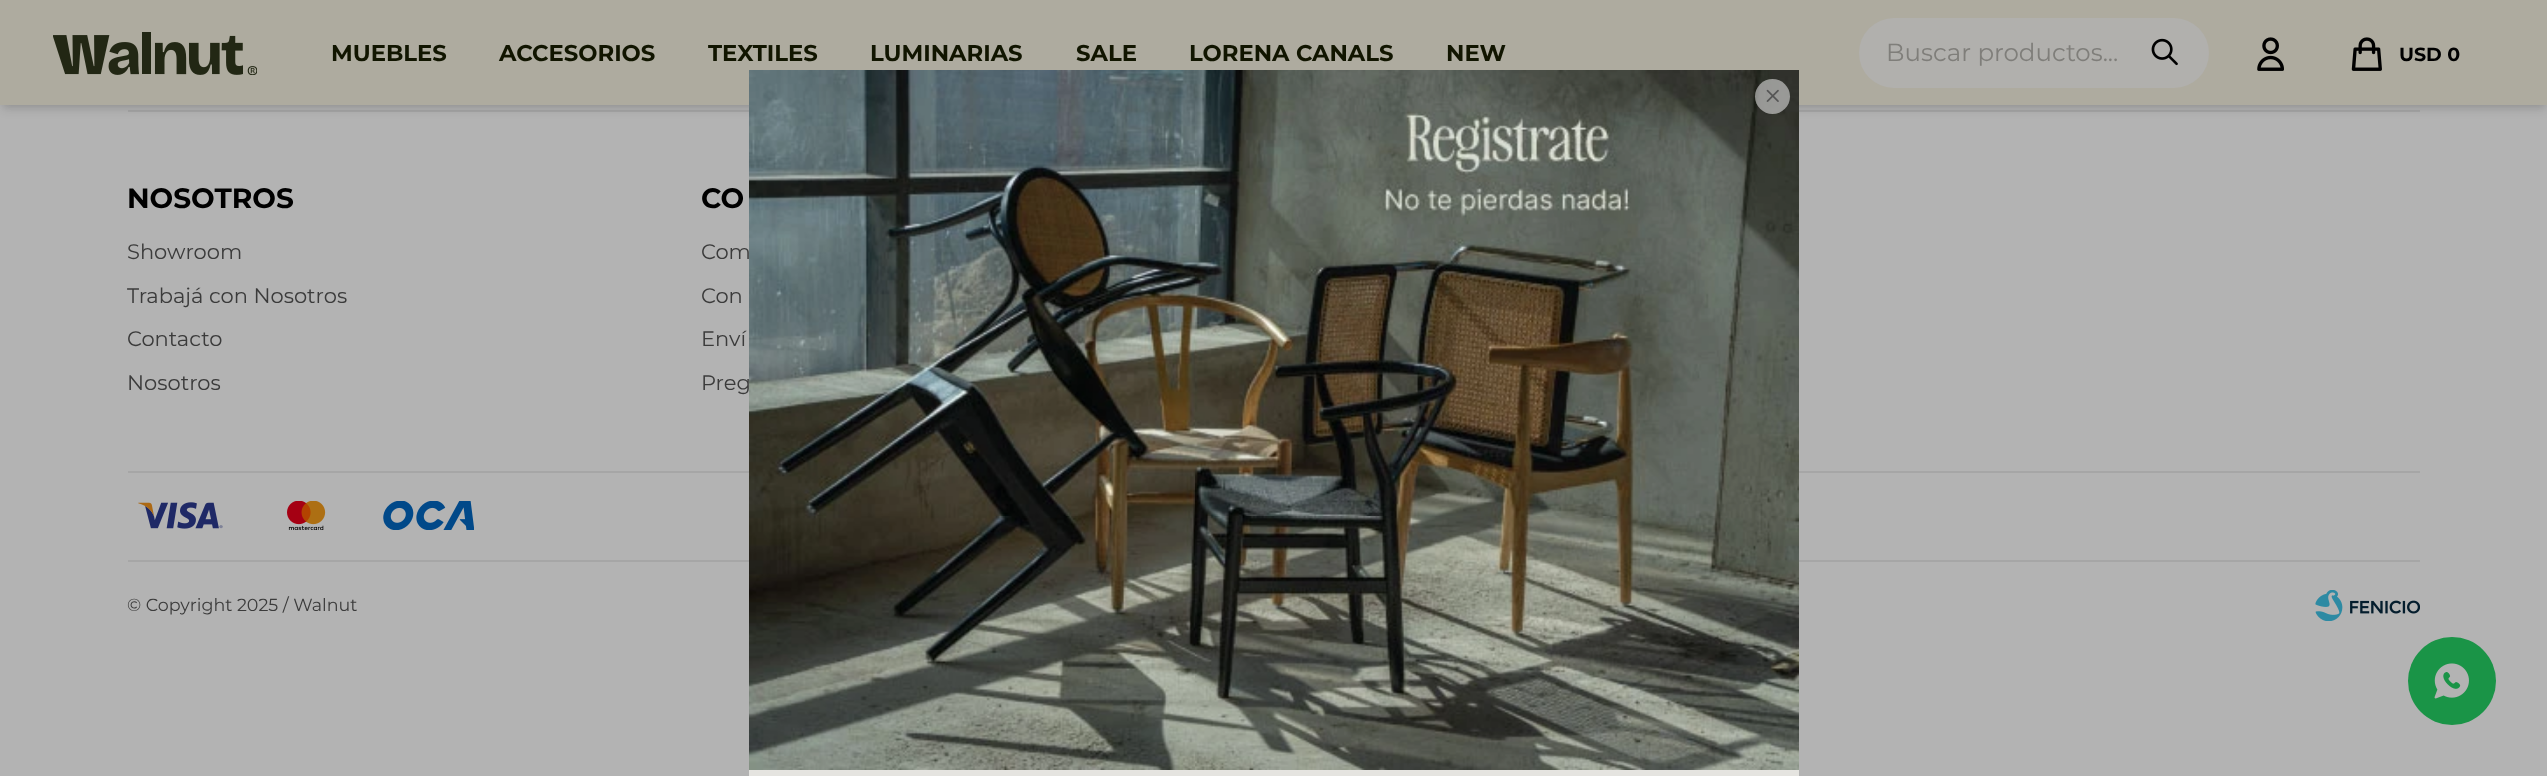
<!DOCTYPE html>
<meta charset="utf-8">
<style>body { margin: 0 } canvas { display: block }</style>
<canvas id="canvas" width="2547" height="776"></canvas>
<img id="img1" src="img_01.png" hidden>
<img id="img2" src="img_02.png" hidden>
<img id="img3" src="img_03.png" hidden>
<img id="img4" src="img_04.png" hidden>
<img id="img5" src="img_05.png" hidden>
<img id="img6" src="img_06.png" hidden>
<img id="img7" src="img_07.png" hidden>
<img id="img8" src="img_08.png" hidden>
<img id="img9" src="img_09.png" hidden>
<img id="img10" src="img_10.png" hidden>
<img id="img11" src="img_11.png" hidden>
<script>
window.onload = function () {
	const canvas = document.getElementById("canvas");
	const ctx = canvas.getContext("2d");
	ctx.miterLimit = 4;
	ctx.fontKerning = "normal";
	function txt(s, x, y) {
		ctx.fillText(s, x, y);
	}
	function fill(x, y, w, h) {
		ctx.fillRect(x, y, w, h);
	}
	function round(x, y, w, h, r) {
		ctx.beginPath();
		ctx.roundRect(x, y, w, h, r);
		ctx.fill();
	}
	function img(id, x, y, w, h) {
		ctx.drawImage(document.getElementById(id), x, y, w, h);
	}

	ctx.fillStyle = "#B3B3B3";
	fill(0, 0, 2547, 776);
	ctx.fillStyle = "#A6A6A6";
	fill(128, 110, 2292, 2);
	ctx.fillStyle = "rgba(0, 0, 0, 0.1)";
	ctx.filter = "blur(3.5px)";
	ctx.beginPath();
	ctx.rect(4, 7, 2541, 98);
	ctx.fill();
	ctx.filter = "none";
	ctx.filter = "blur(5px)";
	ctx.beginPath();
	ctx.rect(2, 9, 2544, 101);
	ctx.fill();
	ctx.filter = "none";
	ctx.fillStyle = "#AEAB9F";
	fill(0, 0, 2547, 105);
	img("img1", 53, 32, 204, 43);
	ctx.fillStyle = "#B1B0AD";
	round(1859, 18, 350, 70, 35);
	img("img2", 2151, 38, 27, 28);
	img("img3", 2257, 37, 27, 34);
	img("img4", 2351, 37, 31, 34);
	ctx.fillStyle = "#A6A6A6";
	fill(128, 471, 2292, 2);
	img("img5", 138, 502, 85, 27);
	img("img6", 287, 501, 39, 29);
	img("img7", 383, 501, 91, 29);
	fill(128, 560, 2292, 2);
	img("img8", 2315, 590, 105, 31);
	img("img9", 749, 70, 1050, 700);
	ctx.fillStyle = "#E5E4E0";
	fill(749, 770, 1050, 6);
	ctx.fillStyle = "rgba(255, 255, 255, 0.5)";
	ctx.beginPath();
	ctx.arc(1772.5, 96.5, 17.5, 0, Math.PI * 2);
	ctx.fill();
	img("img10", 1766, 89, 13, 13);
	ctx.fillStyle = "#1A9447";
	ctx.beginPath();
	ctx.arc(2452, 681, 44, 0, Math.PI * 2);
	ctx.fill();
	img("img11", 2434, 663, 35, 36);
	ctx.font = "bold 22.75px Montserrat";
	ctx.fillStyle = "#111500";
	txt("MUEBLES", 331, 61);
	txt("ACCESORIOS", 499, 61);
	txt("TEXTILES", 708, 61);
	txt("LUMINARIAS", 870, 61);
	txt("SALE", 1076, 61);
	txt("LORENA CANALS", 1189, 61);
	txt("NEW", 1446, 61);
	ctx.font = "24.5px Montserrat";
	ctx.fillStyle = "#7F7E7A";
	txt("Buscar productos...", 1886, 61);
	ctx.font = "bold 19px Montserrat";
	ctx.fillStyle = "#000000";
	txt("USD 0", 2399, 61);
	ctx.font = "bold 28px Montserrat";
	txt("NOSOTROS", 127, 208);
	ctx.font = "21px Montserrat";
	ctx.fillStyle = "#3B3B3B";
	txt("Showroom", 127, 259);
	txt("Trabajá con Nosotros", 127, 303);
	txt("Contacto", 127, 346);
	txt("Nosotros", 127, 390);
	ctx.font = "bold 28px Montserrat";
	ctx.fillStyle = "#000000";
	txt("CO", 701, 208);
	ctx.font = "21px Montserrat";
	ctx.fillStyle = "#3B3B3B";
	txt("Com", 701, 259);
	txt("Con", 701, 303);
	txt("Enví", 701, 346);
	txt("Preg", 701, 390);
	ctx.font = "17.5px Montserrat";
	txt("© Copyright 2025 / Walnut", 127, 611);
};
</script>
